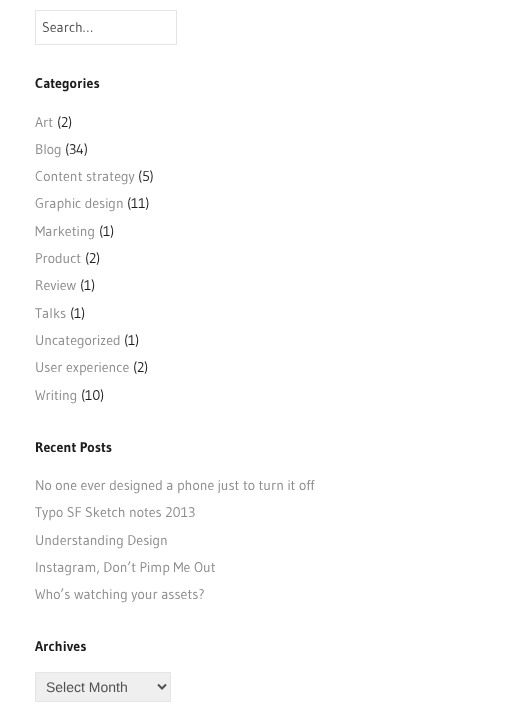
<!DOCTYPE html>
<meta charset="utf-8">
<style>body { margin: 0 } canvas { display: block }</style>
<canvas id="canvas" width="518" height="712"></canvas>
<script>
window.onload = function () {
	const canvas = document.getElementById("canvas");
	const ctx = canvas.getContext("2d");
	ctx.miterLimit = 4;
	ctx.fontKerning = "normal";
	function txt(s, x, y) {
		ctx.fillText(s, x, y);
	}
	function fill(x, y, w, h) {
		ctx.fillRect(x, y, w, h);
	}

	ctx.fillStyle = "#FFFFFF";
	fill(0, 0, 518, 712);
	ctx.strokeStyle = "#E5E5E5";
	ctx.strokeRect(35.5, 10.5, 141, 34);
	ctx.fillStyle = "#EFEFEF";
	ctx.beginPath();
	ctx.rect(35.5, 672.5, 135, 29);
	ctx.fill();
	ctx.stroke();
	ctx.beginPath();
	ctx.moveTo(158, 684.5);
	ctx.lineTo(162, 688.5);
	ctx.lineTo(166, 684.5);
	ctx.strokeStyle = "#505050";
	ctx.lineWidth = 2;
	ctx.stroke();
	ctx.font = "14px Gudea";
	ctx.fillStyle = "#505050";
	txt("Search…", 42, 32);
	ctx.font = "bold 14px Gudea";
	ctx.fillStyle = "#1C1C1C";
	txt("Categories", 35, 88);
	ctx.font = "14px Gudea";
	ctx.fillStyle = "#8C8C8C";
	txt("Art", 35, 127);
	ctx.fillStyle = "#1C1C1C";
	txt("(2)", 57, 127);
	ctx.fillStyle = "#8C8C8C";
	txt("Blog", 35, 154);
	ctx.fillStyle = "#1C1C1C";
	txt("(34)", 65, 154);
	ctx.fillStyle = "#8C8C8C";
	txt("Content strategy", 35, 181);
	ctx.fillStyle = "#1C1C1C";
	txt("(5)", 138, 181);
	ctx.fillStyle = "#8C8C8C";
	txt("Graphic design", 35, 208);
	ctx.fillStyle = "#1C1C1C";
	txt("(11)", 127, 208);
	ctx.fillStyle = "#8C8C8C";
	txt("Marketing", 35, 236);
	ctx.fillStyle = "#1C1C1C";
	txt("(1)", 99, 236);
	ctx.fillStyle = "#8C8C8C";
	txt("Product", 35, 263);
	ctx.fillStyle = "#1C1C1C";
	txt("(2)", 85, 263);
	ctx.fillStyle = "#8C8C8C";
	txt("Review", 35, 290);
	ctx.fillStyle = "#1C1C1C";
	txt("(1)", 80, 290);
	ctx.fillStyle = "#8C8C8C";
	txt("Talks", 35, 318);
	ctx.fillStyle = "#1C1C1C";
	txt("(1)", 70, 318);
	ctx.fillStyle = "#8C8C8C";
	txt("Uncategorized", 35, 345);
	ctx.fillStyle = "#1C1C1C";
	txt("(1)", 124, 345);
	ctx.fillStyle = "#8C8C8C";
	txt("User experience", 35, 372);
	ctx.fillStyle = "#1C1C1C";
	txt("(2)", 133, 372);
	ctx.fillStyle = "#8C8C8C";
	txt("Writing", 35, 400);
	ctx.fillStyle = "#1C1C1C";
	txt("(10)", 81, 400);
	ctx.font = "bold 14px Gudea";
	txt("Recent Posts", 35, 452);
	ctx.font = "14px Gudea";
	ctx.fillStyle = "#8C8C8C";
	txt("No one ever designed a phone just to turn it off", 35, 490);
	txt("Typo SF Sketch notes 2013", 35, 517);
	txt("Understanding Design", 35, 545);
	txt("Instagram, Don’t Pimp Me Out", 35, 572);
	txt("Who’s watching your assets?", 35, 599);
	ctx.font = "bold 14px Gudea";
	ctx.fillStyle = "#1C1C1C";
	txt("Archives", 35, 651);
	ctx.font = "14px Liberation Sans";
	ctx.fillStyle = "#505050";
	txt("Select Month", 46, 692);
};
</script>
